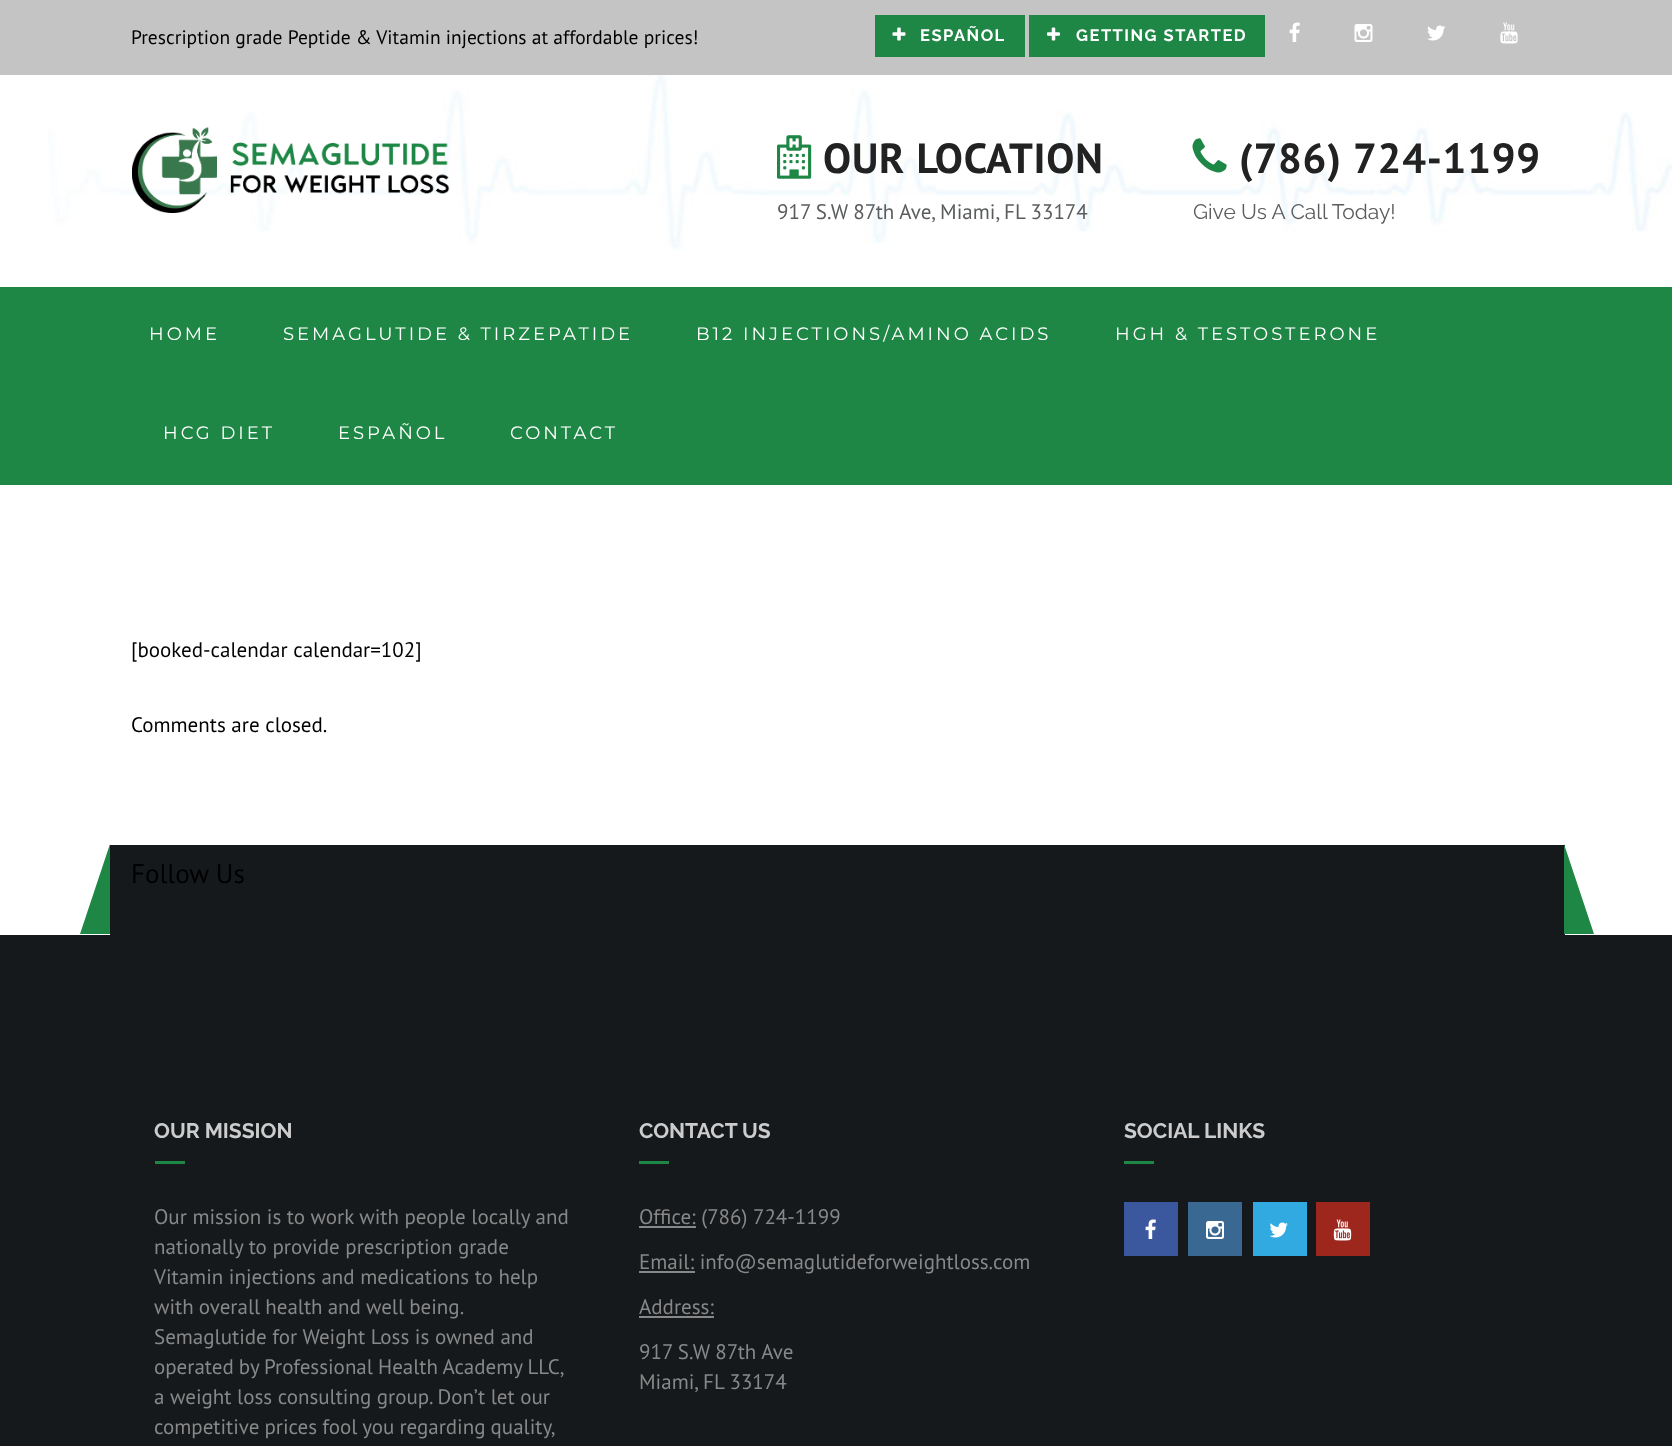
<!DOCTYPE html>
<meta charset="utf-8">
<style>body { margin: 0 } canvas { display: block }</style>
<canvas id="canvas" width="1672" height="1446"></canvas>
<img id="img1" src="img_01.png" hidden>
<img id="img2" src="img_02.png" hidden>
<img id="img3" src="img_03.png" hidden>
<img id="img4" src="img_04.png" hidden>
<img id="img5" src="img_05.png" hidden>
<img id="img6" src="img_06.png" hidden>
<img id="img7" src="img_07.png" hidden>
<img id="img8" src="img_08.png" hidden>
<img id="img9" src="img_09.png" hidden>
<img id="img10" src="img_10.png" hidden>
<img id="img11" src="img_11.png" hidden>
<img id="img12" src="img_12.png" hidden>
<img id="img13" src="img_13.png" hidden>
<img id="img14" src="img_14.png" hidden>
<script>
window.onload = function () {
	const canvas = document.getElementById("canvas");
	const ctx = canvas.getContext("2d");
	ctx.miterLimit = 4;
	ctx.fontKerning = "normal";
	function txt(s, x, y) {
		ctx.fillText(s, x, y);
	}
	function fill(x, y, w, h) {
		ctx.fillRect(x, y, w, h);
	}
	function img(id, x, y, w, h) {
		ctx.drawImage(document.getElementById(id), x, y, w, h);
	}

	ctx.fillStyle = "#FFFFFF";
	fill(0, 0, 1672, 1446);
	ctx.fillStyle = "#C4C4C4";
	fill(0, 0, 1672, 75);
	ctx.fillStyle = "#1F8745";
	fill(875, 15, 150, 42);
	img("img1", 892, 27, 14, 14);
	fill(1029, 15, 236, 42);
	img("img2", 1047, 27, 13, 14);
	img("img3", 1289, 22, 11, 20);
	img("img4", 1354, 24, 19, 18);
	img("img5", 1427, 25, 19, 16);
	img("img6", 1500, 22, 18, 22);
	img("img7", 48, 75, 1624, 176);
	img("img8", 132, 127, 318, 86);
	img("img9", 777, 135, 35, 44);
	img("img10", 1192, 138, 35, 35);
	fill(0, 287, 1672, 198);
	ctx.fillStyle = "#15191C";
	fill(0, 935, 1672, 511);
	fill(110, 845, 1455, 90);
	ctx.fillStyle = "#1F8745";
	ctx.beginPath();
	ctx.moveTo(110, 934);
	ctx.lineTo(80, 934);
	ctx.lineTo(110, 844);
	ctx.closePath();
	ctx.fill();
	ctx.beginPath();
	ctx.moveTo(1594, 934);
	ctx.lineTo(1564, 934);
	ctx.lineTo(1564, 844);
	ctx.closePath();
	ctx.fill();
	fill(155, 1161, 30, 3);
	fill(639, 1161, 30, 3);
	ctx.fillStyle = "#888888";
	fill(639, 1226, 57, 2);
	fill(639, 1271, 56, 2);
	fill(639, 1316, 75, 2);
	ctx.fillStyle = "#1F8745";
	fill(1124, 1161, 30, 3);
	ctx.fillStyle = "#3B579D";
	fill(1124, 1202, 54, 54);
	img("img11", 1145, 1219, 11, 20);
	ctx.fillStyle = "#396892";
	fill(1188, 1202, 54, 54);
	img("img12", 1206, 1221, 18, 18);
	ctx.fillStyle = "#31AAE2";
	fill(1253, 1202, 54, 54);
	img("img13", 1269, 1222, 19, 16);
	ctx.fillStyle = "#9D261D";
	fill(1316, 1202, 54, 54);
	img("img14", 1333, 1219, 19, 22);
	ctx.font = "19.5px PT Sans";
	ctx.fillStyle = "#000000";
	txt("Prescription grade Peptide & Vitamin injections at affordable prices!", 131, 44);
	ctx.letterSpacing = "1.5px";
	ctx.font = "bold 16.5px Raleway";
	ctx.fillStyle = "#FFFFFF";
	txt("ESPAÑOL", 920, 41);
	txt("GETTING STARTED", 1076, 41);
	ctx.letterSpacing = "0.75px";
	ctx.font = "bold 42px PT Sans";
	ctx.fillStyle = "#222222";
	txt("OUR LOCATION", 823, 173);
	ctx.letterSpacing = "0px";
	ctx.font = "21px PT Sans";
	ctx.fillStyle = "#5A5C5D";
	txt("917 S.W 87th Ave, Miami, FL 33174", 777, 219);
	ctx.letterSpacing = "0.75px";
	ctx.font = "bold 42px PT Sans";
	ctx.fillStyle = "#222222";
	txt("(786) 724-1199", 1239, 173);
	ctx.letterSpacing = "0px";
	ctx.font = "21px Raleway";
	ctx.fillStyle = "#5A5C5D";
	txt("Give Us A Call Today!", 1193, 219);
	ctx.letterSpacing = "3px";
	ctx.font = "18px Montserrat";
	ctx.fillStyle = "#FFFFFF";
	txt("HOME", 149, 340);
	txt("SEMAGLUTIDE & TIRZEPATIDE", 283, 340);
	txt("B12 INJECTIONS/AMINO ACIDS", 696, 340);
	txt("HGH & TESTOSTERONE", 1115, 340);
	txt("HCG DIET", 163, 439);
	txt("ESPAÑOL", 338, 439);
	txt("CONTACT", 510, 439);
	ctx.letterSpacing = "0px";
	ctx.font = "21px PT Sans";
	ctx.fillStyle = "#000000";
	txt("[booked-calendar calendar=102]", 131, 657);
	txt("Comments are closed.", 131, 732);
	ctx.font = "27px PT Sans";
	txt("Follow Us", 131, 883);
	ctx.font = "bold 21px Raleway";
	ctx.fillStyle = "#CCCCCC";
	txt("OUR MISSION", 154, 1138);
	ctx.font = "21px PT Sans";
	ctx.fillStyle = "#888888";
	txt("Our mission is to work with people locally and", 154, 1224);
	txt("nationally to provide prescription grade", 154, 1254);
	txt("Vitamin injections and medications to help", 154, 1284);
	ctx.wordSpacing = "-0.5px";
	txt("with overall health and well being.", 154, 1314);
	ctx.wordSpacing = "0px";
	txt("Semaglutide for Weight Loss is owned and", 154, 1344);
	ctx.wordSpacing = "-0.5px";
	txt("operated by Professional Health Academy LLC,", 154, 1374);
	ctx.wordSpacing = "0px";
	txt("a weight loss consulting group. Don’t let our", 154, 1404);
	ctx.wordSpacing = "-0.5px";
	txt("competitive prices fool you regarding quality,", 154, 1434);
	ctx.wordSpacing = "0px";
	ctx.font = "bold 21px Raleway";
	ctx.fillStyle = "#CCCCCC";
	txt("CONTACT US", 639, 1138);
	ctx.font = "21px PT Sans";
	ctx.fillStyle = "#888888";
	txt("Office: (786) 724-1199", 639, 1224);
	txt("Email: info@semaglutideforweightloss.com", 639, 1269);
	txt("Address:", 639, 1314);
	txt("917 S.W 87th Ave", 639, 1359);
	txt("Miami, FL 33174", 639, 1389);
	ctx.font = "bold 21px Raleway";
	ctx.fillStyle = "#CCCCCC";
	txt("SOCIAL LINKS", 1124, 1138);
};
</script>
